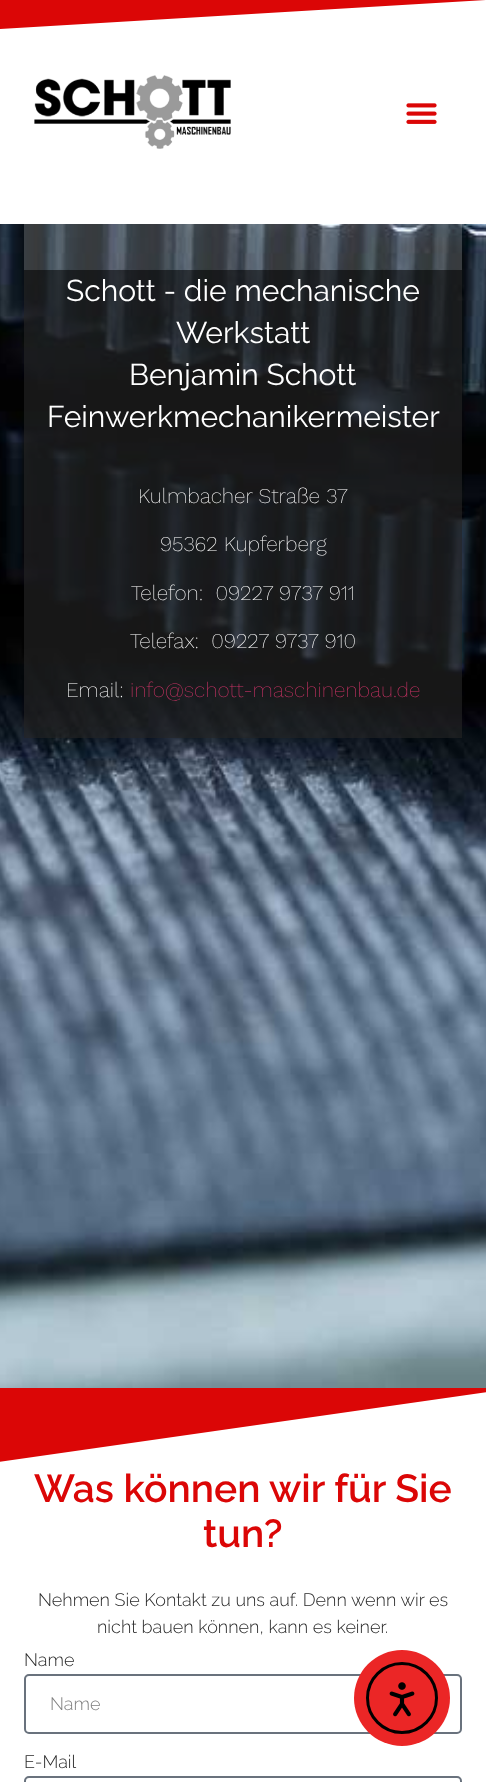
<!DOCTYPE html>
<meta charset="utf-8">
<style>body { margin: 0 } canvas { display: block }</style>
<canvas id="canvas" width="486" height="1782"></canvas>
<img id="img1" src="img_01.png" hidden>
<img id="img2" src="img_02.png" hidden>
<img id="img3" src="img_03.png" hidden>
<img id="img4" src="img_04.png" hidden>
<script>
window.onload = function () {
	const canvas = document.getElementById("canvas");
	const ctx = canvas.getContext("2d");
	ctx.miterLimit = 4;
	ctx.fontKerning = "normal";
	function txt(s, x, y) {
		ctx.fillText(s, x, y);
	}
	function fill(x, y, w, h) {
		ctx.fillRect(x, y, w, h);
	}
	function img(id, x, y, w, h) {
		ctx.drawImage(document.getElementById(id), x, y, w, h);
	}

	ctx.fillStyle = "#FFFFFF";
	fill(0, 0, 486, 1782);
	ctx.fillStyle = "#DB0606";
	ctx.beginPath();
	ctx.moveTo(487, 0);
	ctx.lineTo(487, -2);
	ctx.lineTo(-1, -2);
	ctx.lineTo(-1, 29);
	ctx.closePath();
	ctx.fill();
	img("img1", 34, 75, 197, 74);
	img("img2", 406, 103, 31, 21);
	img("img3", 0, 224, 486, 1164);
	ctx.fillStyle = "rgba(255, 255, 255, 0.2)";
	fill(24, 224, 438, 514);
	ctx.fillStyle = "rgba(0, 0, 0, 0.54)";
	fill(24, 270, 438, 468);
	ctx.fillStyle = "#DB0606";
	ctx.beginPath();
	ctx.moveTo(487, 1392);
	ctx.lineTo(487, 1388);
	ctx.lineTo(-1, 1388);
	ctx.lineTo(-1, 1462);
	ctx.closePath();
	ctx.fill();
	ctx.beginPath();
	ctx.roundRect(25, 1675, 436, 58, 4);
	ctx.strokeStyle = "#69727D";
	ctx.lineWidth = 2;
	ctx.stroke();
	ctx.beginPath();
	ctx.roundRect(25, 1777, 436, 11, 4);
	ctx.stroke();
	ctx.fillStyle = "#EB2626";
	ctx.beginPath();
	ctx.arc(402, 1698, 48, 0, Math.PI * 2);
	ctx.fill();
	ctx.beginPath();
	ctx.arc(402, 1698, 34.5, 0, Math.PI * 2);
	ctx.strokeStyle = "#000000";
	ctx.lineWidth = 3;
	ctx.stroke();
	img("img4", 389, 1682, 26, 35);
	ctx.font = "100 30px Raleway";
	ctx.fillStyle = "#FFFFFF";
	txt("Schott - die mechanische", 66, 301);
	txt("Werkstatt", 176, 343);
	txt("Benjamin Schott", 129, 385);
	txt("Feinwerkmechanikermeister", 47, 427);
	ctx.font = "200 21px Work Sans";
	txt("Kulmbacher Straße 37", 138, 503);
	txt("95362 Kupferberg", 160, 551);
	txt("Telefon:  09227 9737 911", 131, 600);
	txt("Telefax:  09227 9737 910", 130, 648);
	txt("Email:", 66, 697);
	ctx.fillStyle = "#CC3366";
	txt("info@schott-maschinenbau.de", 130, 697);
	ctx.font = "100 39px 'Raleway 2'";
	ctx.fillStyle = "#DB0606";
	txt("Was können wir für Sie", 34, 1502);
	txt("tun?", 203, 1547);
	ctx.font = "100 18px 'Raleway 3'";
	ctx.fillStyle = "#292929";
	txt("Nehmen Sie Kontakt zu uns auf. Denn wenn wir es", 38, 1606);
	txt("nicht bauen können, kann es keiner.", 97, 1633);
	txt("Name", 24, 1666);
	ctx.fillStyle = "#7F7F7F";
	txt("Name", 50, 1710);
	ctx.fillStyle = "#292929";
	txt("E-Mail", 24, 1768);
};
</script>
